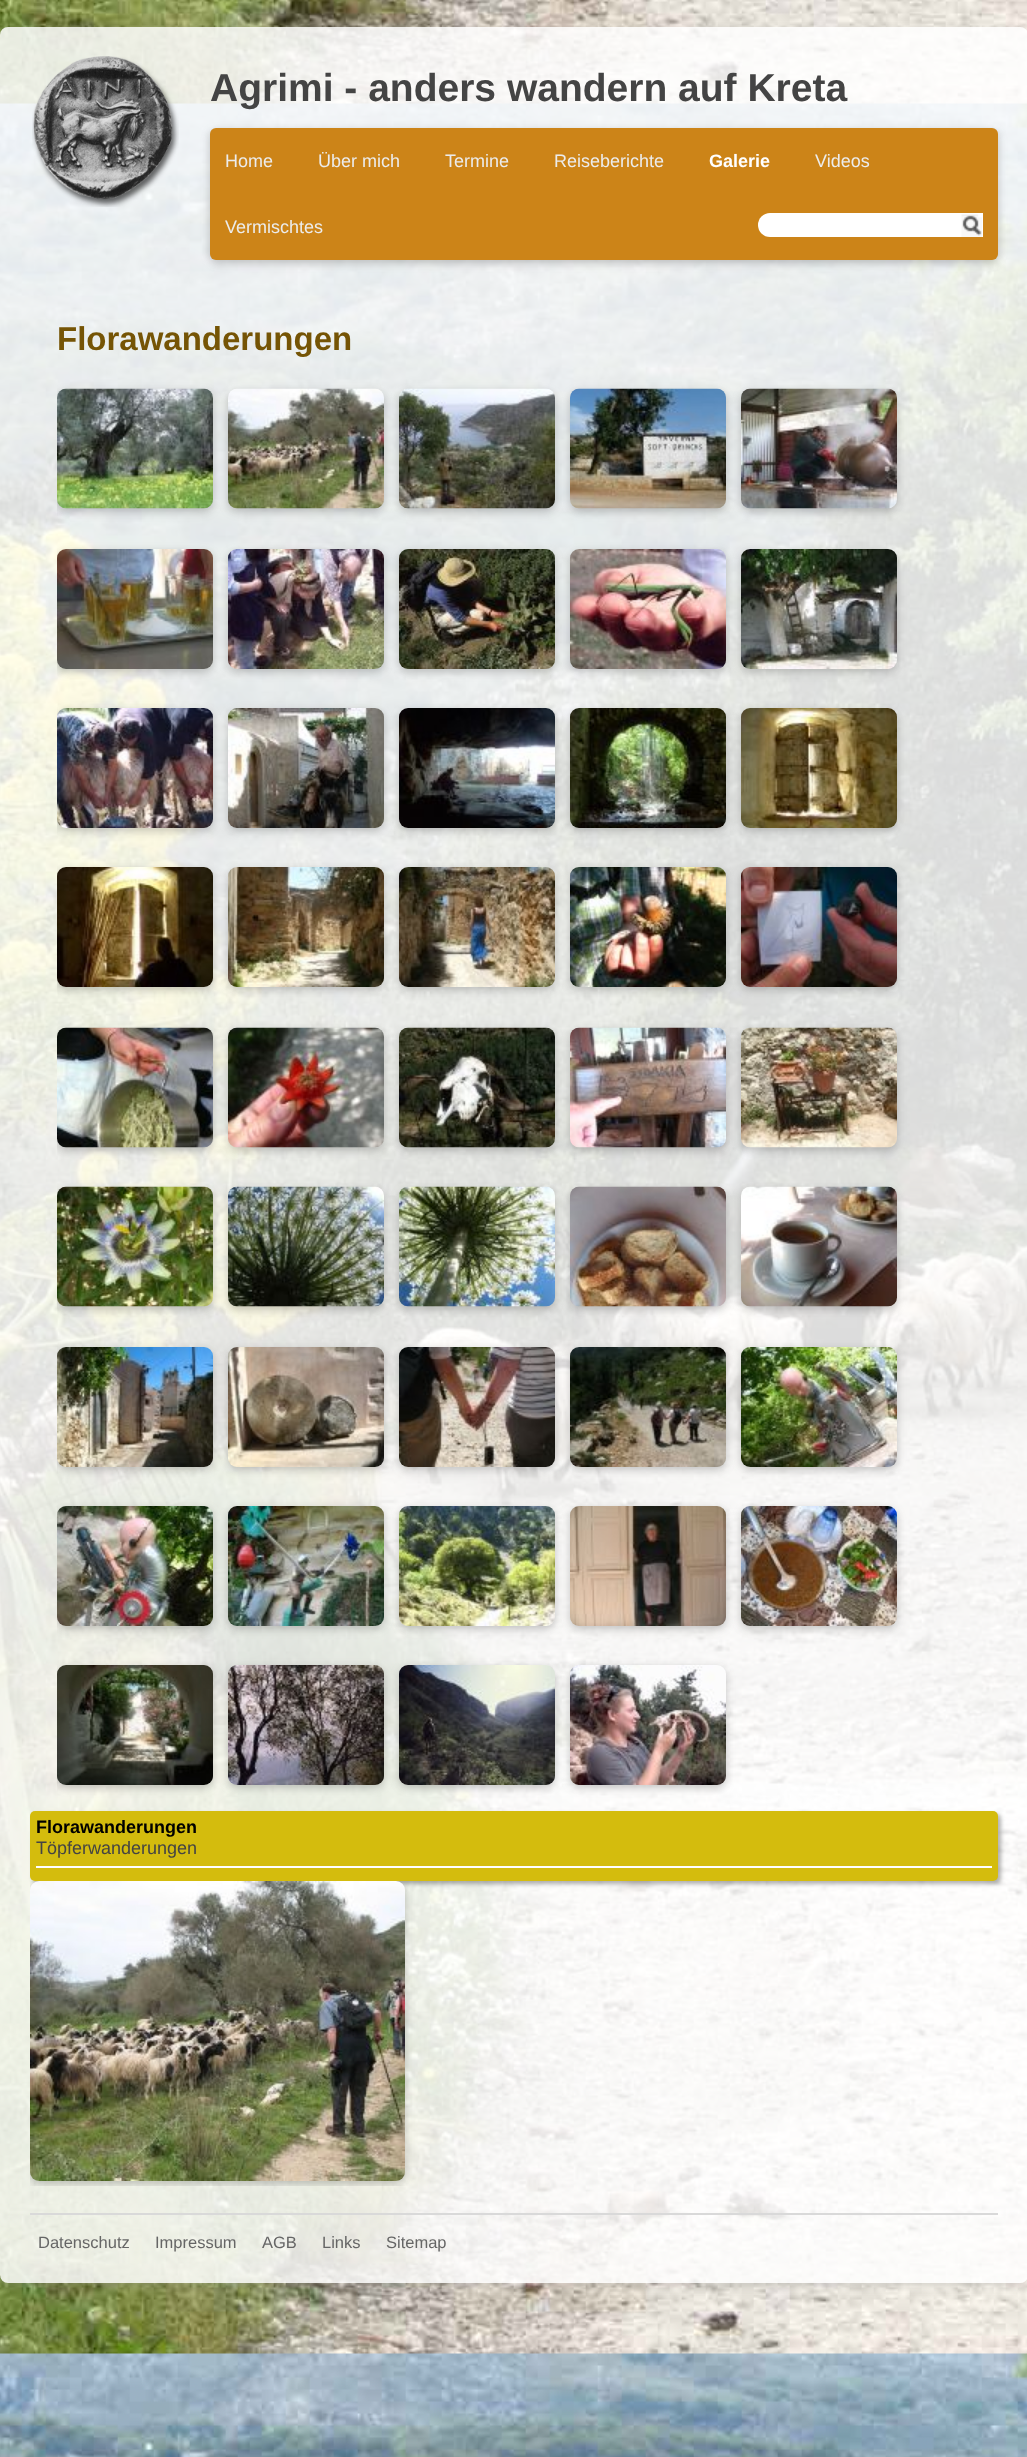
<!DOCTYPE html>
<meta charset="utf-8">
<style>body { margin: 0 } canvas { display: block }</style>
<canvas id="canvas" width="1027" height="2457"></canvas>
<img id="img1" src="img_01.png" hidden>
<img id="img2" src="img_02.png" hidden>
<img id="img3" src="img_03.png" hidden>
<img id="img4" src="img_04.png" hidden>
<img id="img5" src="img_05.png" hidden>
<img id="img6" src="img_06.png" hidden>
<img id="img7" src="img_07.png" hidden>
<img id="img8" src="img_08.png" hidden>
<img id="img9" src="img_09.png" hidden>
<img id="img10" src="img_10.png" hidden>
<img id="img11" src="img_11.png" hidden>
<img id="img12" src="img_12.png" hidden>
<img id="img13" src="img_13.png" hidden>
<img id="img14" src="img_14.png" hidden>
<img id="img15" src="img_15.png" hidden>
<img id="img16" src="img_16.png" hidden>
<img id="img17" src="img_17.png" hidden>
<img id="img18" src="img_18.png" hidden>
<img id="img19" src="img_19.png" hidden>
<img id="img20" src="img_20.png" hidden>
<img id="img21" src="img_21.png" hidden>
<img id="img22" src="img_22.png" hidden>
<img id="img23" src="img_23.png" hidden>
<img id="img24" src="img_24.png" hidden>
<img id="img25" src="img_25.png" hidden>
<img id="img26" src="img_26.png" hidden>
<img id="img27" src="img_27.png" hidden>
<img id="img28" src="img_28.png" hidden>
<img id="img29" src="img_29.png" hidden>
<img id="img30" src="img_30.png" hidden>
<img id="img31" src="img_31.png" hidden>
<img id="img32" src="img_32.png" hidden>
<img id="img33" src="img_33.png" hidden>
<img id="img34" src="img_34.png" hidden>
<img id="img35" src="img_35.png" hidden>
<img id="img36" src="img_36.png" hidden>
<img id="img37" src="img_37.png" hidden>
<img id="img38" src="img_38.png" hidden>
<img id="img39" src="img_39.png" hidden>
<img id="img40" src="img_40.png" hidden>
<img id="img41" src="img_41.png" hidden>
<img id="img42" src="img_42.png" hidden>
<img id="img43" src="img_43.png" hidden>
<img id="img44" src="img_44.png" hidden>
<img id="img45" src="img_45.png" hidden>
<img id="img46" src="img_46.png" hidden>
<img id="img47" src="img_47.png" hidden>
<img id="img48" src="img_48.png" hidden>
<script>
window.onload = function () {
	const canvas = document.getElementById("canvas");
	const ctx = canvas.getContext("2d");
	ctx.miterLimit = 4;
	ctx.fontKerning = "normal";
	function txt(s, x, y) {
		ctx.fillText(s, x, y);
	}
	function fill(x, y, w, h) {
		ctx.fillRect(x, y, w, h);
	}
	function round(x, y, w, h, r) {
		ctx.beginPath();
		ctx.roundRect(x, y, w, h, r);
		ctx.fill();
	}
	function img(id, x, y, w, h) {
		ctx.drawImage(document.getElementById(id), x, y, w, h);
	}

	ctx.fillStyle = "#FFFFFF";
	fill(0, 0, 1027, 2457);
	img("img1", 0, 0, 1027, 2457);
	ctx.save();
	ctx.beginPath();
	ctx.moveTo(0, 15);
	ctx.lineTo(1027, 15);
	ctx.lineTo(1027, 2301);
	ctx.lineTo(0, 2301);
	ctx.closePath();
	ctx.moveTo(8, 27);
	ctx.lineTo(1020, 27);
	ctx.bezierCurveTo(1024.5, 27, 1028, 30.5, 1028, 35);
	ctx.lineTo(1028, 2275);
	ctx.bezierCurveTo(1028, 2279.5, 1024.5, 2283, 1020, 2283);
	ctx.lineTo(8, 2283);
	ctx.bezierCurveTo(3.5, 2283, 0, 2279.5, 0, 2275);
	ctx.lineTo(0, 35);
	ctx.bezierCurveTo(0, 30.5, 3.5, 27, 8, 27);
	ctx.closePath();
	ctx.clip("evenodd");
	ctx.fillStyle = "rgba(142, 142, 142, 0.3)";
	ctx.filter = "blur(4.5px)";
	ctx.beginPath();
	ctx.roundRect(0, 30, 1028, 2256, 8);
	ctx.fill();
	ctx.filter = "none";
	ctx.restore();
	ctx.fillStyle = "rgba(255, 255, 255, 0.85)";
	round(0, 27, 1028, 2256, 8);
	img("img2", 32, 56, 147, 151);
	ctx.fillStyle = "rgba(68, 68, 68, 0.3)";
	ctx.filter = "blur(4.5px)";
	ctx.beginPath();
	ctx.roundRect(210, 131, 788, 132, 6);
	ctx.fill();
	ctx.filter = "none";
	ctx.fillStyle = "#CC8418";
	round(210, 128, 788, 132, 6);
	ctx.fillStyle = "#FFFFFF";
	ctx.beginPath();
	ctx.roundRect(758, 213, 225, 24, [12, 0, 0, 12]);
	ctx.fill();
	img("img3", 961, 214, 21, 23);
	ctx.save();
	ctx.beginPath();
	ctx.rect(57, 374, 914, 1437);
	ctx.clip();
	ctx.fillStyle = "rgba(68, 68, 68, 0.3)";
	ctx.filter = "blur(4.5px)";
	ctx.beginPath();
	ctx.roundRect(57, 392, 156, 120, 9);
	ctx.fill();
	ctx.filter = "none";
	ctx.restore();
	img("img4", 57, 388, 156, 121);
	ctx.fillStyle = "rgba(68, 68, 68, 0.3)";
	ctx.filter = "blur(4.5px)";
	ctx.beginPath();
	ctx.roundRect(228, 392, 156, 120, 9);
	ctx.fill();
	ctx.filter = "none";
	img("img5", 228, 388, 156, 121);
	ctx.filter = "blur(4.5px)";
	ctx.beginPath();
	ctx.roundRect(399, 392, 156, 120, 9);
	ctx.fill();
	ctx.filter = "none";
	img("img6", 399, 388, 156, 121);
	ctx.filter = "blur(4.5px)";
	ctx.beginPath();
	ctx.roundRect(570, 392, 156, 120, 9);
	ctx.fill();
	ctx.filter = "none";
	img("img7", 570, 388, 156, 121);
	ctx.filter = "blur(4.5px)";
	ctx.beginPath();
	ctx.roundRect(741, 392, 156, 120, 9);
	ctx.fill();
	ctx.filter = "none";
	img("img8", 741, 388, 156, 121);
	ctx.save();
	ctx.beginPath();
	ctx.rect(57, 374, 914, 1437);
	ctx.clip();
	ctx.filter = "blur(4.5px)";
	ctx.beginPath();
	ctx.roundRect(57, 552, 156, 120, 9);
	ctx.fill();
	ctx.filter = "none";
	ctx.restore();
	img("img9", 57, 549, 156, 120);
	ctx.filter = "blur(4.5px)";
	ctx.beginPath();
	ctx.roundRect(228, 552, 156, 120, 9);
	ctx.fill();
	ctx.filter = "none";
	img("img10", 228, 549, 156, 120);
	ctx.filter = "blur(4.5px)";
	ctx.beginPath();
	ctx.roundRect(399, 552, 156, 120, 9);
	ctx.fill();
	ctx.filter = "none";
	img("img11", 399, 549, 156, 120);
	ctx.filter = "blur(4.5px)";
	ctx.beginPath();
	ctx.roundRect(570, 552, 156, 120, 9);
	ctx.fill();
	ctx.filter = "none";
	img("img12", 570, 549, 156, 120);
	ctx.filter = "blur(4.5px)";
	ctx.beginPath();
	ctx.roundRect(741, 552, 156, 120, 9);
	ctx.fill();
	ctx.filter = "none";
	img("img13", 741, 549, 156, 120);
	ctx.save();
	ctx.beginPath();
	ctx.rect(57, 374, 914, 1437);
	ctx.clip();
	ctx.filter = "blur(4.5px)";
	ctx.beginPath();
	ctx.roundRect(57, 711, 156, 120, 9);
	ctx.fill();
	ctx.filter = "none";
	ctx.restore();
	img("img14", 57, 708, 156, 120);
	ctx.filter = "blur(4.5px)";
	ctx.beginPath();
	ctx.roundRect(228, 711, 156, 120, 9);
	ctx.fill();
	ctx.filter = "none";
	img("img15", 228, 708, 156, 120);
	ctx.filter = "blur(4.5px)";
	ctx.beginPath();
	ctx.roundRect(399, 711, 156, 120, 9);
	ctx.fill();
	ctx.filter = "none";
	img("img16", 399, 708, 156, 120);
	ctx.filter = "blur(4.5px)";
	ctx.beginPath();
	ctx.roundRect(570, 711, 156, 120, 9);
	ctx.fill();
	ctx.filter = "none";
	img("img17", 570, 708, 156, 120);
	ctx.filter = "blur(4.5px)";
	ctx.beginPath();
	ctx.roundRect(741, 711, 156, 120, 9);
	ctx.fill();
	ctx.filter = "none";
	img("img18", 741, 708, 156, 120);
	ctx.save();
	ctx.beginPath();
	ctx.rect(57, 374, 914, 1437);
	ctx.clip();
	ctx.filter = "blur(4.5px)";
	ctx.beginPath();
	ctx.roundRect(57, 870, 156, 120, 9);
	ctx.fill();
	ctx.filter = "none";
	ctx.restore();
	img("img19", 57, 867, 156, 120);
	ctx.filter = "blur(4.5px)";
	ctx.beginPath();
	ctx.roundRect(228, 870, 156, 120, 9);
	ctx.fill();
	ctx.filter = "none";
	img("img20", 228, 867, 156, 120);
	ctx.filter = "blur(4.5px)";
	ctx.beginPath();
	ctx.roundRect(399, 870, 156, 120, 9);
	ctx.fill();
	ctx.filter = "none";
	img("img21", 399, 867, 156, 120);
	ctx.filter = "blur(4.5px)";
	ctx.beginPath();
	ctx.roundRect(570, 870, 156, 120, 9);
	ctx.fill();
	ctx.filter = "none";
	img("img22", 570, 867, 156, 120);
	ctx.filter = "blur(4.5px)";
	ctx.beginPath();
	ctx.roundRect(741, 870, 156, 120, 9);
	ctx.fill();
	ctx.filter = "none";
	img("img23", 741, 867, 156, 120);
	ctx.save();
	ctx.beginPath();
	ctx.rect(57, 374, 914, 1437);
	ctx.clip();
	ctx.filter = "blur(4.5px)";
	ctx.beginPath();
	ctx.roundRect(57, 1031, 156, 120, 9);
	ctx.fill();
	ctx.filter = "none";
	ctx.restore();
	img("img24", 57, 1027, 156, 121);
	ctx.filter = "blur(4.5px)";
	ctx.beginPath();
	ctx.roundRect(228, 1031, 156, 120, 9);
	ctx.fill();
	ctx.filter = "none";
	img("img25", 228, 1027, 156, 121);
	ctx.filter = "blur(4.5px)";
	ctx.beginPath();
	ctx.roundRect(399, 1031, 156, 120, 9);
	ctx.fill();
	ctx.filter = "none";
	img("img26", 399, 1027, 156, 121);
	ctx.filter = "blur(4.5px)";
	ctx.beginPath();
	ctx.roundRect(570, 1031, 156, 120, 9);
	ctx.fill();
	ctx.filter = "none";
	img("img27", 570, 1027, 156, 121);
	ctx.filter = "blur(4.5px)";
	ctx.beginPath();
	ctx.roundRect(741, 1031, 156, 120, 9);
	ctx.fill();
	ctx.filter = "none";
	img("img28", 741, 1027, 156, 121);
	ctx.save();
	ctx.beginPath();
	ctx.rect(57, 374, 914, 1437);
	ctx.clip();
	ctx.filter = "blur(4.5px)";
	ctx.beginPath();
	ctx.roundRect(57, 1190, 156, 120, 9);
	ctx.fill();
	ctx.filter = "none";
	ctx.restore();
	img("img29", 57, 1186, 156, 121);
	ctx.filter = "blur(4.5px)";
	ctx.beginPath();
	ctx.roundRect(228, 1190, 156, 120, 9);
	ctx.fill();
	ctx.filter = "none";
	img("img30", 228, 1186, 156, 121);
	ctx.filter = "blur(4.5px)";
	ctx.beginPath();
	ctx.roundRect(399, 1190, 156, 120, 9);
	ctx.fill();
	ctx.filter = "none";
	img("img31", 399, 1186, 156, 121);
	ctx.filter = "blur(4.5px)";
	ctx.beginPath();
	ctx.roundRect(570, 1190, 156, 120, 9);
	ctx.fill();
	ctx.filter = "none";
	img("img32", 570, 1186, 156, 121);
	ctx.filter = "blur(4.5px)";
	ctx.beginPath();
	ctx.roundRect(741, 1190, 156, 120, 9);
	ctx.fill();
	ctx.filter = "none";
	img("img33", 741, 1186, 156, 121);
	ctx.save();
	ctx.beginPath();
	ctx.rect(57, 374, 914, 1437);
	ctx.clip();
	ctx.filter = "blur(4.5px)";
	ctx.beginPath();
	ctx.roundRect(57, 1350, 156, 120, 9);
	ctx.fill();
	ctx.filter = "none";
	ctx.restore();
	img("img34", 57, 1347, 156, 120);
	ctx.filter = "blur(4.5px)";
	ctx.beginPath();
	ctx.roundRect(228, 1350, 156, 120, 9);
	ctx.fill();
	ctx.filter = "none";
	img("img35", 228, 1347, 156, 120);
	ctx.filter = "blur(4.5px)";
	ctx.beginPath();
	ctx.roundRect(399, 1350, 156, 120, 9);
	ctx.fill();
	ctx.filter = "none";
	img("img36", 399, 1347, 156, 120);
	ctx.filter = "blur(4.5px)";
	ctx.beginPath();
	ctx.roundRect(570, 1350, 156, 120, 9);
	ctx.fill();
	ctx.filter = "none";
	img("img37", 570, 1347, 156, 120);
	ctx.filter = "blur(4.5px)";
	ctx.beginPath();
	ctx.roundRect(741, 1350, 156, 120, 9);
	ctx.fill();
	ctx.filter = "none";
	img("img38", 741, 1347, 156, 120);
	ctx.save();
	ctx.beginPath();
	ctx.rect(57, 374, 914, 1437);
	ctx.clip();
	ctx.filter = "blur(4.5px)";
	ctx.beginPath();
	ctx.roundRect(57, 1509, 156, 120, 9);
	ctx.fill();
	ctx.filter = "none";
	ctx.restore();
	img("img39", 57, 1506, 156, 120);
	ctx.filter = "blur(4.5px)";
	ctx.beginPath();
	ctx.roundRect(228, 1509, 156, 120, 9);
	ctx.fill();
	ctx.filter = "none";
	img("img40", 228, 1506, 156, 120);
	ctx.filter = "blur(4.5px)";
	ctx.beginPath();
	ctx.roundRect(399, 1509, 156, 120, 9);
	ctx.fill();
	ctx.filter = "none";
	img("img41", 399, 1506, 156, 120);
	ctx.filter = "blur(4.5px)";
	ctx.beginPath();
	ctx.roundRect(570, 1509, 156, 120, 9);
	ctx.fill();
	ctx.filter = "none";
	img("img42", 570, 1506, 156, 120);
	ctx.filter = "blur(4.5px)";
	ctx.beginPath();
	ctx.roundRect(741, 1509, 156, 120, 9);
	ctx.fill();
	ctx.filter = "none";
	img("img43", 741, 1506, 156, 120);
	ctx.save();
	ctx.beginPath();
	ctx.rect(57, 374, 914, 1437);
	ctx.clip();
	ctx.filter = "blur(4.5px)";
	ctx.beginPath();
	ctx.roundRect(57, 1668, 156, 120, 9);
	ctx.fill();
	ctx.filter = "none";
	ctx.restore();
	img("img44", 57, 1665, 156, 120);
	ctx.filter = "blur(4.5px)";
	ctx.beginPath();
	ctx.roundRect(228, 1668, 156, 120, 9);
	ctx.fill();
	ctx.filter = "none";
	img("img45", 228, 1665, 156, 120);
	ctx.filter = "blur(4.5px)";
	ctx.beginPath();
	ctx.roundRect(399, 1668, 156, 120, 9);
	ctx.fill();
	ctx.filter = "none";
	img("img46", 399, 1665, 156, 120);
	ctx.filter = "blur(4.5px)";
	ctx.beginPath();
	ctx.roundRect(570, 1668, 156, 120, 9);
	ctx.fill();
	ctx.filter = "none";
	img("img47", 570, 1665, 156, 120);
	ctx.fillStyle = "rgba(0, 0, 0, 0.3)";
	ctx.filter = "blur(2px)";
	ctx.beginPath();
	ctx.roundRect(33, 1814, 968, 70, 5);
	ctx.fill();
	ctx.filter = "none";
	ctx.fillStyle = "#D4BC0D";
	round(30, 1811, 968, 70, 5);
	ctx.fillStyle = "#FFFFFF";
	fill(36, 1866, 956, 2);
	ctx.save();
	ctx.beginPath();
	ctx.rect(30, 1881, 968, 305);
	ctx.clip();
	ctx.fillStyle = "rgba(68, 68, 68, 0.3)";
	ctx.filter = "blur(4.5px)";
	ctx.beginPath();
	ctx.roundRect(30, 1884, 375, 300, 9);
	ctx.fill();
	ctx.filter = "none";
	ctx.restore();
	img("img48", 30, 1881, 375, 300);
	ctx.fillStyle = "#D9D9D9";
	fill(30, 2213, 968, 2);
	ctx.font = "bold 39px Liberation Sans";
	ctx.fillStyle = "#444444";
	txt("Agrimi - anders wandern auf Kreta", 210, 101);
	ctx.font = "18px Liberation Sans";
	ctx.fillStyle = "#ECECEC";
	txt("Home", 225, 167);
	txt("Über mich", 318, 167);
	txt("Termine", 445, 167);
	txt("Reiseberichte", 554, 167);
	ctx.font = "bold 18px Liberation Sans";
	ctx.fillStyle = "#FFFFFF";
	txt("Galerie", 709, 167);
	ctx.font = "18px Liberation Sans";
	ctx.fillStyle = "#ECECEC";
	txt("Videos", 815, 167);
	txt("Vermischtes", 225, 233);
	ctx.font = "bold 33px Liberation Sans";
	ctx.fillStyle = "#755405";
	txt("Florawanderungen", 57, 350);
	ctx.font = "bold 18px Liberation Sans";
	ctx.fillStyle = "#000000";
	txt("Florawanderungen", 36, 1833);
	ctx.font = "18px Liberation Sans";
	ctx.fillStyle = "#444444";
	txt("Töpferwanderungen", 36, 1854);
	ctx.font = "16.5px Liberation Sans";
	ctx.fillStyle = "#666666";
	txt("Datenschutz", 38, 2248);
	txt("Impressum", 155, 2248);
	txt("AGB", 262, 2248);
	txt("Links", 322, 2248);
	txt("Sitemap", 386, 2248);
};
</script>
